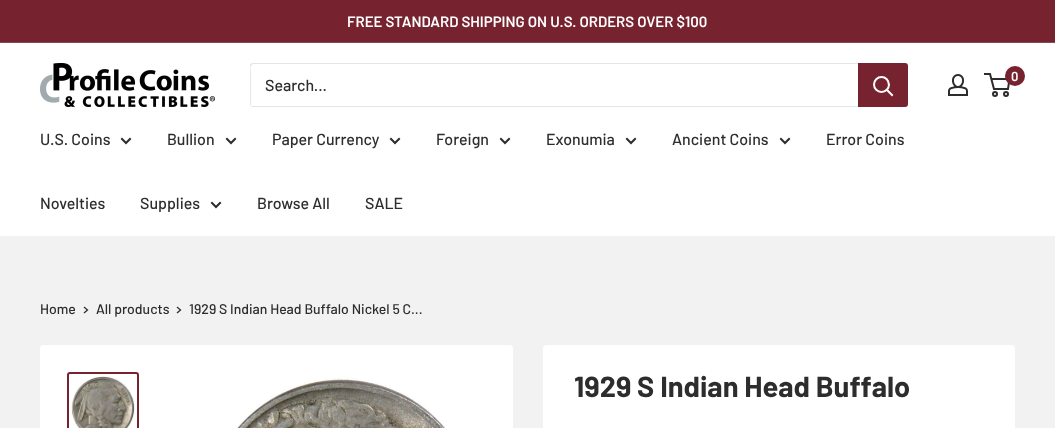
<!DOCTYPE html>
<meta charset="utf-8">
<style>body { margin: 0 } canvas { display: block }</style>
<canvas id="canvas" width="1055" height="428"></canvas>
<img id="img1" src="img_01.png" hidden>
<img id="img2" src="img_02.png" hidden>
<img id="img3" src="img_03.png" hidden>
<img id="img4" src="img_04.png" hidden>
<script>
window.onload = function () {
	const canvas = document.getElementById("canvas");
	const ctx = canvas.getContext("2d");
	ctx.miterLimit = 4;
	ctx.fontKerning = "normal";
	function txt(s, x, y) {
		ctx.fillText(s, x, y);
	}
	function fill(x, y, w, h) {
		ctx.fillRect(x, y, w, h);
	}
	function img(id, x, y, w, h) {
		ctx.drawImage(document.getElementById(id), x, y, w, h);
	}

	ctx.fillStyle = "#F2F2F2";
	fill(0, 0, 1055, 428);
	ctx.fillStyle = "#76232F";
	fill(0, 0, 1055, 42);
	ctx.fillStyle = "#834C55";
	fill(0, 42, 1055, 1);
	ctx.fillStyle = "#FFFFFF";
	fill(0, 43, 1055, 193);
	img("img1", 40, 63, 175, 44);
	img("img2", 948, 74, 20, 22);
	ctx.beginPath();
	ctx.arc(995, 94, 2, 0, Math.PI * 2);
	ctx.strokeStyle = "#2D2D2D";
	ctx.lineWidth = 2;
	ctx.stroke();
	ctx.beginPath();
	ctx.arc(1006, 94, 2, 0, Math.PI * 2);
	ctx.stroke();
	ctx.beginPath();
	ctx.moveTo(991.5, 79);
	ctx.lineTo(1009.5, 79);
	ctx.lineTo(1008, 89);
	ctx.lineTo(994, 89);
	ctx.lineTo(990, 74);
	ctx.lineTo(984, 74);
	ctx.stroke();
	ctx.fillStyle = "#76232F";
	ctx.beginPath();
	ctx.arc(1015, 76, 10, 0, Math.PI * 2);
	ctx.fill();
	ctx.fillStyle = "#E3E6E6";
	ctx.beginPath();
	ctx.moveTo(251, 106);
	ctx.bezierCurveTo(251, 107, 252, 107, 253, 107);
	ctx.lineTo(905, 107);
	ctx.bezierCurveTo(907, 107, 908, 106, 908, 104);
	ctx.lineTo(908, 66);
	ctx.bezierCurveTo(908, 65, 908, 64, 907, 64);
	ctx.lineTo(907, 97);
	ctx.bezierCurveTo(907, 99, 909, 106, 904, 106);
	ctx.closePath();
	ctx.fill();
	ctx.beginPath();
	ctx.moveTo(254, 64);
	ctx.lineTo(907, 64);
	ctx.bezierCurveTo(907, 63, 906, 63, 905, 63);
	ctx.lineTo(253, 63);
	ctx.bezierCurveTo(251, 63, 250, 64, 250, 66);
	ctx.lineTo(250, 104);
	ctx.bezierCurveTo(250, 105, 250, 106, 251, 106);
	ctx.lineTo(251, 73);
	ctx.bezierCurveTo(251, 71, 249, 64, 254, 64);
	ctx.closePath();
	ctx.fill();
	ctx.fillStyle = "#76232F";
	ctx.beginPath();
	ctx.roundRect(858, 63, 50, 44, [0, 3, 3, 0]);
	ctx.fill();
	ctx.beginPath();
	ctx.moveTo(892, 95);
	ctx.lineTo(887, 90);
	ctx.strokeStyle = "#FFFFFF";
	ctx.lineCap = "square";
	ctx.stroke();
	ctx.beginPath();
	ctx.arc(881.5, 84.5, 7.5, 0, Math.PI * 2);
	ctx.stroke();
	ctx.beginPath();
	ctx.moveTo(130, 139);
	ctx.lineTo(126, 143);
	ctx.lineTo(122, 139);
	ctx.strokeStyle = "#2D2D2D";
	ctx.stroke();
	ctx.beginPath();
	ctx.moveTo(235, 139);
	ctx.lineTo(231, 143);
	ctx.lineTo(227, 139);
	ctx.stroke();
	ctx.beginPath();
	ctx.moveTo(399, 139);
	ctx.lineTo(395, 143);
	ctx.lineTo(391, 139);
	ctx.stroke();
	ctx.beginPath();
	ctx.moveTo(509, 139);
	ctx.lineTo(505, 143);
	ctx.lineTo(501, 139);
	ctx.stroke();
	ctx.beginPath();
	ctx.moveTo(635, 139);
	ctx.lineTo(631, 143);
	ctx.lineTo(627, 139);
	ctx.stroke();
	ctx.beginPath();
	ctx.moveTo(789, 139);
	ctx.lineTo(785, 143);
	ctx.lineTo(781, 139);
	ctx.stroke();
	ctx.beginPath();
	ctx.moveTo(220, 203);
	ctx.lineTo(216, 207);
	ctx.lineTo(212, 203);
	ctx.stroke();
	ctx.beginPath();
	ctx.moveTo(84.5, 307.5);
	ctx.lineTo(87.5, 310);
	ctx.lineTo(84.5, 312.5);
	ctx.lineWidth = 1.3;
	ctx.stroke();
	ctx.beginPath();
	ctx.moveTo(177.5, 307.5);
	ctx.lineTo(180.5, 310);
	ctx.lineTo(177.5, 312.5);
	ctx.stroke();
	ctx.fillStyle = "#FFFFFF";
	ctx.beginPath();
	ctx.roundRect(40.5, 345.5, 472, 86, 2.5);
	ctx.fill();
	ctx.strokeStyle = "#FFFFFF";
	ctx.lineWidth = 1;
	ctx.stroke();
	ctx.beginPath();
	ctx.roundRect(68, 373, 70, 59, 2);
	ctx.strokeStyle = "#76232F";
	ctx.lineWidth = 2;
	ctx.stroke();
	img("img3", 71, 376, 64, 52);
	img("img4", 237, 376, 211, 52);
	ctx.beginPath();
	ctx.roundRect(543.5, 345.5, 471, 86, 2.5);
	ctx.fill();
	ctx.strokeStyle = "#FFFFFF";
	ctx.lineWidth = 1;
	ctx.stroke();
	ctx.font = "600 15px Barlow";
	txt("FREE STANDARD SHIPPING ON U.S. ORDERS OVER $100", 347, 27);
	ctx.font = "600 13px Barlow";
	txt("0", 1011, 81);
	ctx.font = "500 16px Barlow";
	ctx.fillStyle = "#2D2D2D";
	txt("Search...", 265, 91);
	txt("U.S. Coins", 40, 145);
	txt("Bullion", 167, 145);
	txt("Paper Currency", 272, 145);
	txt("Foreign", 436, 145);
	txt("Exonumia", 546, 145);
	txt("Ancient Coins", 672, 145);
	txt("Error Coins", 826, 145);
	txt("Novelties", 40, 209);
	txt("Supplies", 140, 209);
	txt("Browse All", 257, 209);
	txt("SALE", 365, 209);
	ctx.font = "500 14px Barlow";
	txt("Home", 40, 314);
	txt("All products", 96, 314);
	txt("1929 S Indian Head Buffalo Nickel 5 C...", 189, 314);
	ctx.font = "bold 29px Barlow";
	txt("1929 S Indian Head Buffalo", 574, 397);
};
</script>
